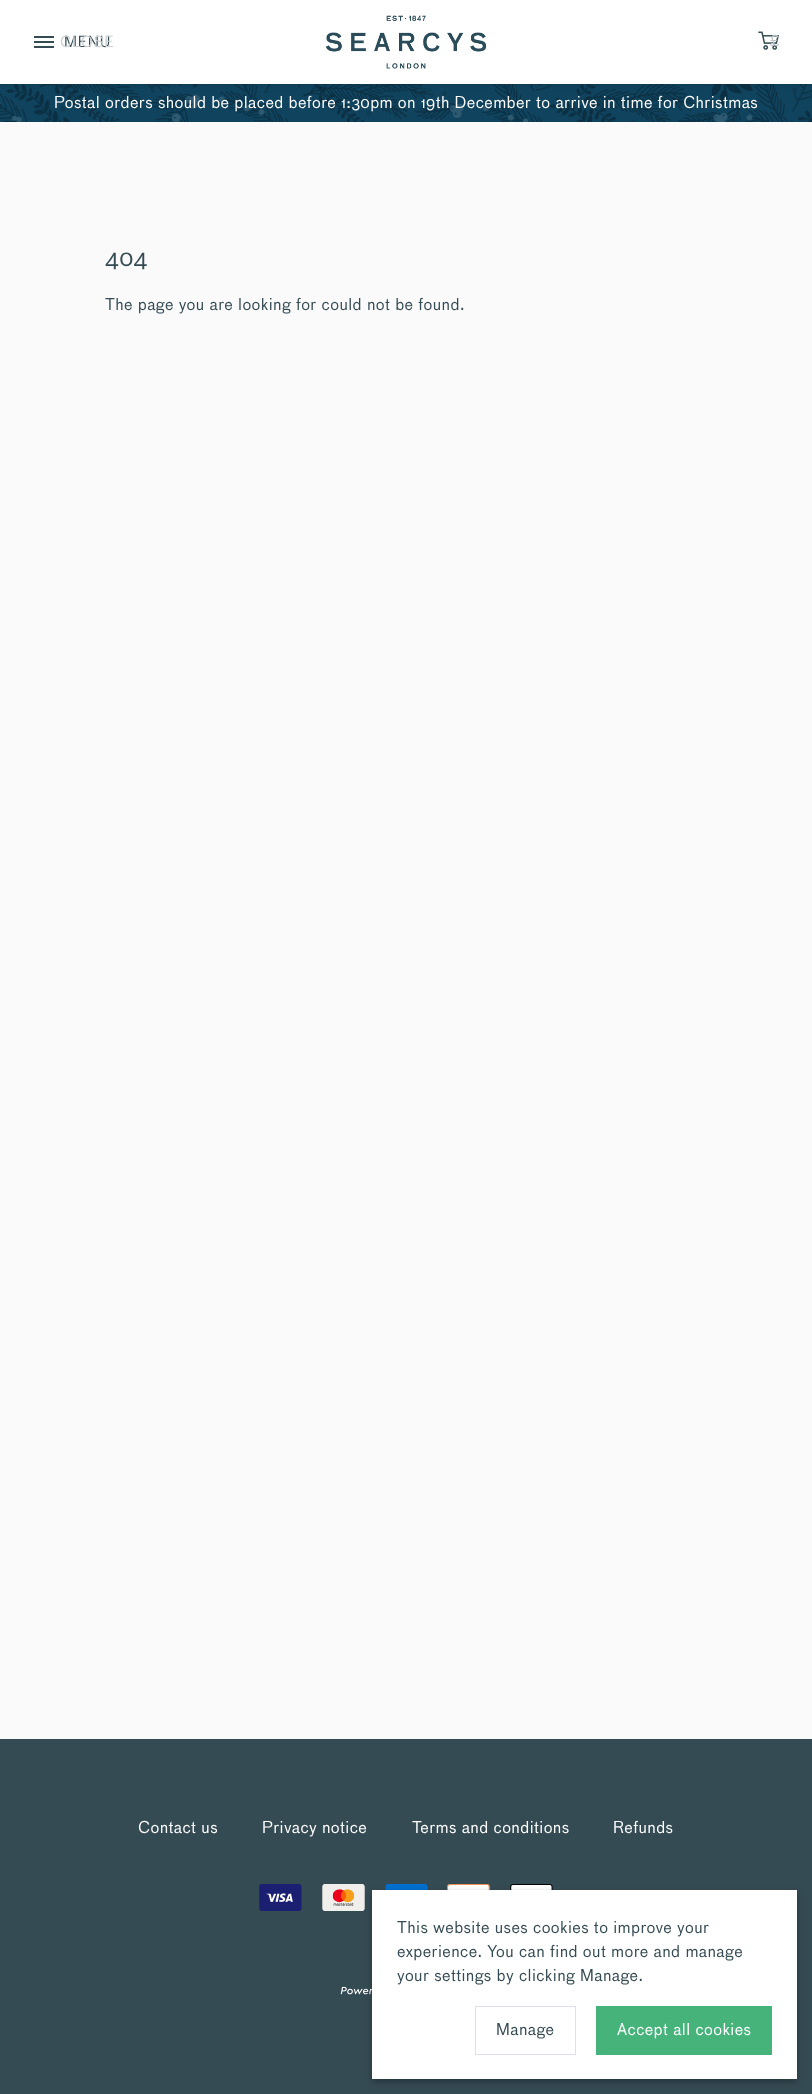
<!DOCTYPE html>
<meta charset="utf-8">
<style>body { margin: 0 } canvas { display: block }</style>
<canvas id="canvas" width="812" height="2094"></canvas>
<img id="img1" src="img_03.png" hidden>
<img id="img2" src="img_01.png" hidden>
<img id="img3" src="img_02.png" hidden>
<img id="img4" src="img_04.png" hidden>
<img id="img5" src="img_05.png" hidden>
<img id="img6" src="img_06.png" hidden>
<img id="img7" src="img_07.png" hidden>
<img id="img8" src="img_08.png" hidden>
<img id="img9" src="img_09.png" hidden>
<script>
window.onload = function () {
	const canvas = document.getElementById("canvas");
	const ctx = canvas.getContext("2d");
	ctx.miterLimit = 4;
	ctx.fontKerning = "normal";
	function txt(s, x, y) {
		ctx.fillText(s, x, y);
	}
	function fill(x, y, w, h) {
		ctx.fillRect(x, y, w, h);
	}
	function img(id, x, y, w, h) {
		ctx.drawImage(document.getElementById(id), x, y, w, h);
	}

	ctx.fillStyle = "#FAFAFA";
	fill(0, 0, 812, 2094);
	ctx.fillStyle = "#10435E";
	fill(0, 84, 812, 38);
	img("img1", 0, 84, 812, 38);
	ctx.fillStyle = "rgba(0, 0, 0, 0.07)";
	ctx.filter = "blur(1.5px)";
	ctx.beginPath();
	ctx.rect(0, 2, 812, 84);
	ctx.fill();
	ctx.filter = "none";
	ctx.fillStyle = "#FFFFFF";
	fill(0, 0, 812, 84);
	ctx.fillStyle = "#354B54";
	fill(34, 36, 20, 2);
	fill(34, 46, 20, 2);
	fill(34, 41, 20, 2);
	img("img2", 326, 15, 160, 54);
	img("img3", 758, 31, 21, 19);
	fill(0, 1739, 812, 355);
	img("img4", 259, 1884, 43, 27);
	img("img5", 322, 1884, 43, 27);
	img("img6", 385, 1884, 43, 6);
	img("img7", 447, 1884, 43, 6);
	img("img8", 510, 1884, 43, 6);
	img("img9", 340, 1986, 32, 9);
	ctx.fillStyle = "rgba(0, 0, 0, 0.3)";
	ctx.filter = "blur(3.5px)";
	ctx.beginPath();
	ctx.rect(372, 1893, 425, 189);
	ctx.fill();
	ctx.filter = "none";
	ctx.fillStyle = "#FFFFFF";
	fill(372, 1890, 425, 189);
	ctx.strokeStyle = "#DFDFED";
	ctx.strokeRect(475.5, 2006.5, 100, 48);
	ctx.fillStyle = "#46B37A";
	fill(596, 2006, 176, 49);
	ctx.letterSpacing = "0.75px";
	ctx.font = "15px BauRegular";
	ctx.fillStyle = "#354B54";
	txt("MENU", 64, 47);
	ctx.fillStyle = "#CBD1D3";
	txt("CLOSE", 60, 47);
	ctx.letterSpacing = "1px";
	ctx.font = "16px BauRegular";
	ctx.fillStyle = "#C0C7C9";
	txt("£", 770, 46);
	ctx.letterSpacing = "0.4px";
	ctx.fillStyle = "#FFFFFF";
	txt("Postal orders should be placed before 1:30pm on 19th December to arrive in time for Christmas", 54, 108);
	ctx.letterSpacing = "0.5px";
	ctx.font = "24px BauRegular";
	ctx.fillStyle = "#354B54";
	txt("404", 105, 266);
	ctx.letterSpacing = "0.4px";
	ctx.font = "16px BauRegular";
	txt("The page you are looking for could not be found.", 105, 310);
	ctx.fillStyle = "#FFFFFF";
	txt("Contact us", 138, 1833);
	txt("Privacy notice", 262, 1833);
	txt("Terms and conditions", 412, 1833);
	txt("Refunds", 613, 1833);
	ctx.fillStyle = "#354B54";
	txt("This website uses cookies to improve your", 397, 1933);
	txt("experience. You can find out more and manage", 397, 1957);
	txt("your settings by clicking Manage.", 397, 1981);
	txt("Manage", 496, 2035);
	ctx.fillStyle = "#FFFFFF";
	txt("Accept all cookies", 617, 2035);
};
</script>
